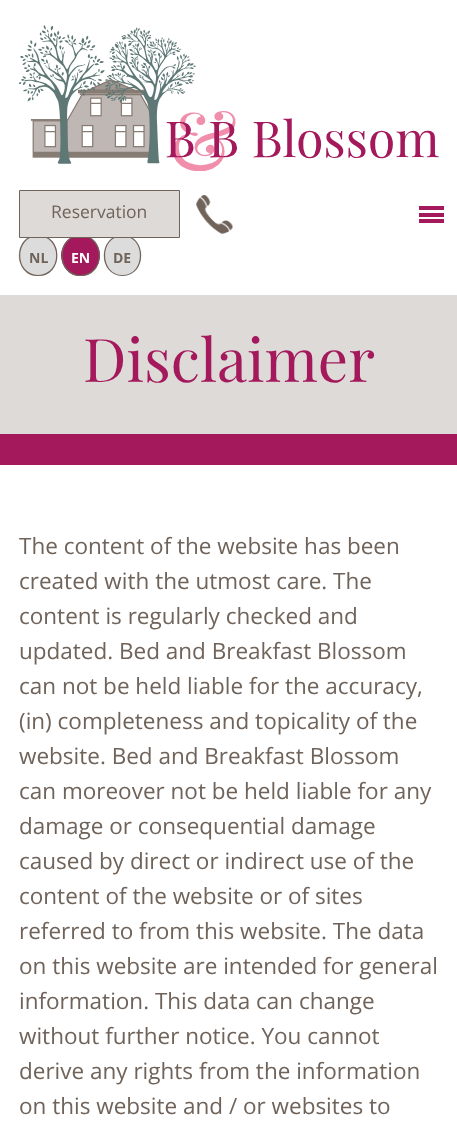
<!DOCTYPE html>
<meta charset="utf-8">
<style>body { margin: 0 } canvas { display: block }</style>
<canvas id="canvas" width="457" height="1130"></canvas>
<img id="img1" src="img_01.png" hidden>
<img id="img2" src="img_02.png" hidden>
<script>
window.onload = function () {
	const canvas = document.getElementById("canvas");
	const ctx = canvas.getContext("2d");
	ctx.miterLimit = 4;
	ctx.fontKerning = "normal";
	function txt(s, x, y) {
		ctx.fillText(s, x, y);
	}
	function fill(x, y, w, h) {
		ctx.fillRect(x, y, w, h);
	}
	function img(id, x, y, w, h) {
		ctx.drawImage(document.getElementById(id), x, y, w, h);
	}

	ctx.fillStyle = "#FFFFFF";
	fill(0, 0, 457, 1130);
	img("img1", 19, 25, 420, 146);
	ctx.fillStyle = "#DCDCDC";
	ctx.beginPath();
	ctx.ellipse(38, 255.5, 19.5, 20.5, 0, 0, Math.PI * 2);
	ctx.fill();
	ctx.beginPath();
	ctx.moveTo(38, 235.5);
	ctx.bezierCurveTo(63, 235.5, 63, 275.5, 38, 275.5);
	ctx.bezierCurveTo(13.5, 275.5, 13.5, 235.5, 38, 235.5);
	ctx.closePath();
	ctx.strokeStyle = "#6F635A";
	ctx.lineWidth = 1.2;
	ctx.stroke();
	ctx.fillStyle = "#A3195B";
	ctx.beginPath();
	ctx.ellipse(80.5, 255.5, 19.5, 20.5, 0, 0, Math.PI * 2);
	ctx.fill();
	ctx.beginPath();
	ctx.moveTo(80.5, 235.5);
	ctx.bezierCurveTo(105.5, 235.5, 105.5, 275.5, 80.5, 275.5);
	ctx.bezierCurveTo(56, 275.5, 56, 235.5, 80.5, 235.5);
	ctx.closePath();
	ctx.stroke();
	ctx.fillStyle = "#DCDCDC";
	ctx.beginPath();
	ctx.ellipse(122.5, 255.5, 19, 20.5, 0, 0, Math.PI * 2);
	ctx.fill();
	ctx.beginPath();
	ctx.moveTo(122.5, 235.5);
	ctx.bezierCurveTo(146.5, 235.5, 146.5, 275.5, 122.5, 275.5);
	ctx.bezierCurveTo(98.5, 275.5, 98.5, 235.5, 122.5, 235.5);
	ctx.closePath();
	ctx.stroke();
	ctx.fillStyle = "#DEDAD8";
	ctx.beginPath();
	ctx.rect(19.5, 190.5, 160, 47);
	ctx.fill();
	ctx.lineWidth = 1;
	ctx.stroke();
	img("img2", 196, 195, 37, 39);
	ctx.fillStyle = "#A3195B";
	fill(419, 213, 25, 4);
	fill(419, 206, 25, 4);
	fill(419, 219, 25, 4);
	ctx.fillStyle = "#DEDAD8";
	fill(0, 295, 457, 139);
	ctx.fillStyle = "#A3195B";
	fill(0, 434, 457, 31);
	ctx.font = "17.5px Open Sans";
	ctx.fillStyle = "#6F635A";
	txt("Reservation", 51, 218);
	ctx.font = "bold 14px Open Sans";
	txt("NL", 29, 263);
	ctx.fillStyle = "#FFFFFF";
	txt("EN", 71, 263);
	ctx.fillStyle = "#6F635A";
	txt("DE", 113, 263);
	ctx.font = "60px Playfair Display";
	ctx.fillStyle = "#A3195B";
	txt("Disclaimer", 83, 382);
	ctx.font = "22.5px Open Sans";
	ctx.fillStyle = "#6F635A";
	txt("The content of the website has been", 19, 554);
	txt("created with the utmost care. The", 19, 589);
	txt("content is regularly checked and", 19, 624);
	txt("updated. Bed and Breakfast Blossom", 19, 659);
	txt("can not be held liable for the accuracy,", 19, 694);
	txt("(in) completeness and topicality of the", 19, 729);
	txt("website. Bed and Breakfast Blossom", 19, 764);
	txt("can moreover not be held liable for any", 19, 799);
	txt("damage or consequential damage", 19, 834);
	txt("caused by direct or indirect use of the", 19, 869);
	txt("content of the website or of sites", 19, 904);
	txt("referred to from this website. The data", 19, 939);
	txt("on this website are intended for general", 19, 974);
	txt("information. This data can change", 19, 1009);
	txt("without further notice. You cannot", 19, 1044);
	txt("derive any rights from the information", 19, 1079);
	txt("on this website and / or websites to", 19, 1114);
};
</script>
